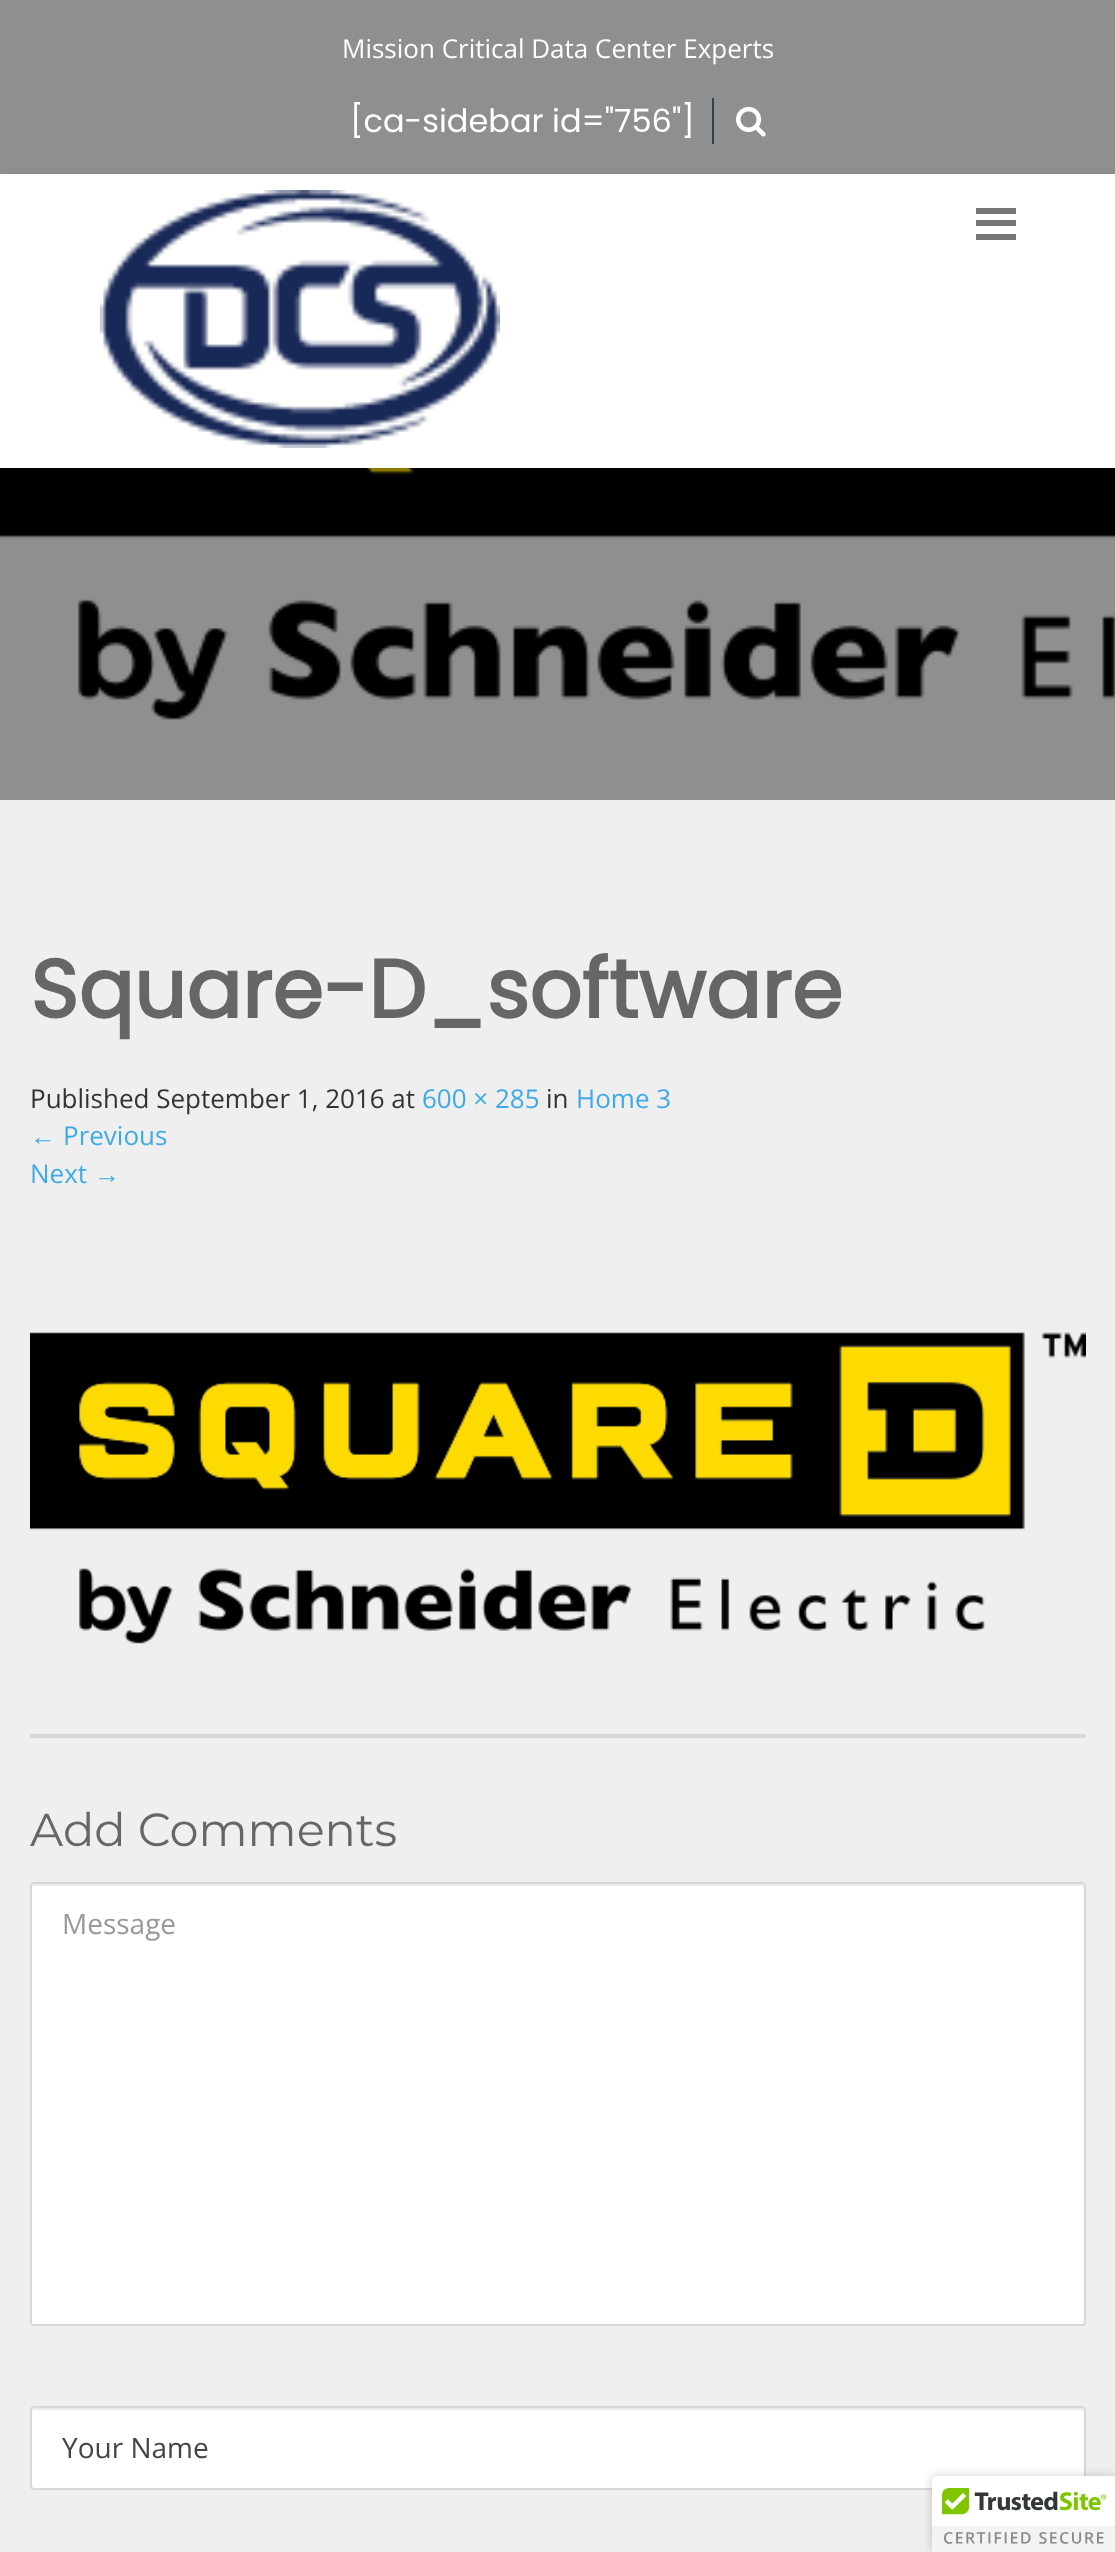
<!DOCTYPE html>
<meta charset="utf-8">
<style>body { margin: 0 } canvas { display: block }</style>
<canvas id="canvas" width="1115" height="2552"></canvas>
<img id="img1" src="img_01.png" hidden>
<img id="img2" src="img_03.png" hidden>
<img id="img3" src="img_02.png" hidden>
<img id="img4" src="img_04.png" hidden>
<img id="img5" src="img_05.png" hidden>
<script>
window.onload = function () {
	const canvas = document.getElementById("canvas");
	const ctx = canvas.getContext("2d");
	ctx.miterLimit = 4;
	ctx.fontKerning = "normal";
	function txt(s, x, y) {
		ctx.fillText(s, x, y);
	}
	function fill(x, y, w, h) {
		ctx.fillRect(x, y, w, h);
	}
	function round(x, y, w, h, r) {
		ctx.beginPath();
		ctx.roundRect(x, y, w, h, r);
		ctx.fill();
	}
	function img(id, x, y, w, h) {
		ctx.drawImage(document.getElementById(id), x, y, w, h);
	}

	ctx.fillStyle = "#EFEFEF";
	fill(0, 0, 1115, 2552);
	ctx.fillStyle = "#8F8F8F";
	fill(0, 0, 1115, 800);
	ctx.fillStyle = "#264455";
	fill(712, 98, 2, 46);
	img("img1", 736, 106, 30, 31);
	img("img2", 0, 468, 1115, 252);
	ctx.fillStyle = "rgba(0, 0, 0, 0.1)";
	ctx.filter = "blur(5px)";
	ctx.beginPath();
	ctx.rect(0, 178, 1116, 294);
	ctx.fill();
	ctx.filter = "none";
	ctx.fillStyle = "#FFFFFF";
	fill(0, 174, 1115, 294);
	img("img3", 100, 190, 400, 258);
	ctx.fillStyle = "#777777";
	fill(976, 208, 40, 6);
	fill(976, 220, 40, 6);
	fill(976, 234, 40, 6);
	img("img4", 30, 1332, 1056, 312);
	ctx.fillStyle = "#D7D8DA";
	fill(30, 1734, 1056, 4);
	ctx.fillStyle = "#FFFFFF";
	round(30, 1882, 1056, 444, 4);
	ctx.fillStyle = "#ECECEC";
	ctx.beginPath();
	ctx.moveTo(34, 1886);
	ctx.lineTo(1082, 1886);
	ctx.bezierCurveTo(1083, 1886, 1084, 1887, 1084, 1888);
	ctx.bezierCurveTo(1084, 1886, 1084, 1884, 1082, 1884);
	ctx.lineTo(34, 1884);
	ctx.lineTo(32, 1885);
	ctx.lineTo(32, 1888);
	ctx.bezierCurveTo(32, 1887, 33, 1886, 34, 1886);
	ctx.closePath();
	ctx.fill();
	ctx.beginPath();
	ctx.roundRect(31, 1883, 1054, 442, 3);
	ctx.strokeStyle = "#D7D8DA";
	ctx.lineWidth = 2;
	ctx.stroke();
	ctx.fillStyle = "#FFFFFF";
	round(30, 2406, 1056, 84, 4);
	ctx.fillStyle = "#ECECEC";
	ctx.beginPath();
	ctx.moveTo(34, 2410);
	ctx.lineTo(1082, 2410);
	ctx.bezierCurveTo(1083, 2410, 1084, 2411, 1084, 2412);
	ctx.bezierCurveTo(1084, 2410, 1084, 2408, 1082, 2408);
	ctx.lineTo(34, 2408);
	ctx.lineTo(32, 2409);
	ctx.lineTo(32, 2412);
	ctx.bezierCurveTo(32, 2411, 33, 2410, 34, 2410);
	ctx.closePath();
	ctx.fill();
	ctx.beginPath();
	ctx.roundRect(31, 2407, 1054, 82, 3);
	ctx.stroke();
	ctx.fillStyle = "rgba(0, 0, 0, 0.2)";
	ctx.filter = "blur(5px)";
	ctx.beginPath();
	ctx.roundRect(932, 2476, 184, 76, 4);
	ctx.fill();
	ctx.filter = "none";
	ctx.fillStyle = "#FFFFFF";
	ctx.beginPath();
	ctx.moveTo(936, 2476);
	ctx.lineTo(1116, 2476);
	ctx.lineTo(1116, 2552);
	ctx.lineTo(932, 2552);
	ctx.lineTo(932, 2480);
	ctx.bezierCurveTo(932, 2478, 934, 2476, 936, 2476);
	ctx.closePath();
	ctx.fill();
	img("img5", 932, 2476, 183, 76);
	ctx.font = "26px Open Sans";
	txt("Mission Critical Data Center Experts", 342, 58);
	ctx.font = "32px Poppins";
	txt("[ca-sidebar id=\"756\"]", 350, 132);
	ctx.font = "bold 82px Poppins";
	ctx.fillStyle = "#666666";
	txt("Square-D_software", 30, 1018);
	ctx.font = "26px Open Sans";
	ctx.fillStyle = "#333333";
	txt("Published September 1, 2016 at", 30, 1108);
	ctx.fillStyle = "#40AAE6";
	txt("600 × 285", 422, 1108);
	ctx.fillStyle = "#333333";
	txt("in", 546, 1108);
	ctx.fillStyle = "#40AAE6";
	txt("Home 3", 576, 1108);
	ctx.font = "26px Liberation Sans";
	txt("←", 30, 1145);
	ctx.font = "26px Open Sans";
	txt("Previous", 63, 1145);
	txt("Next", 30, 1183);
	ctx.font = "26px Liberation Sans";
	txt("→", 94, 1183);
	ctx.font = "46.25px Montserrat";
	ctx.fillStyle = "#666666";
	txt("Add Comments", 30, 1846);
	ctx.font = "28px Open Sans";
	ctx.fillStyle = "#999999";
	txt("Message", 62, 1934);
	ctx.fillStyle = "#444444";
	txt("Your Name", 62, 2458);
};
</script>
